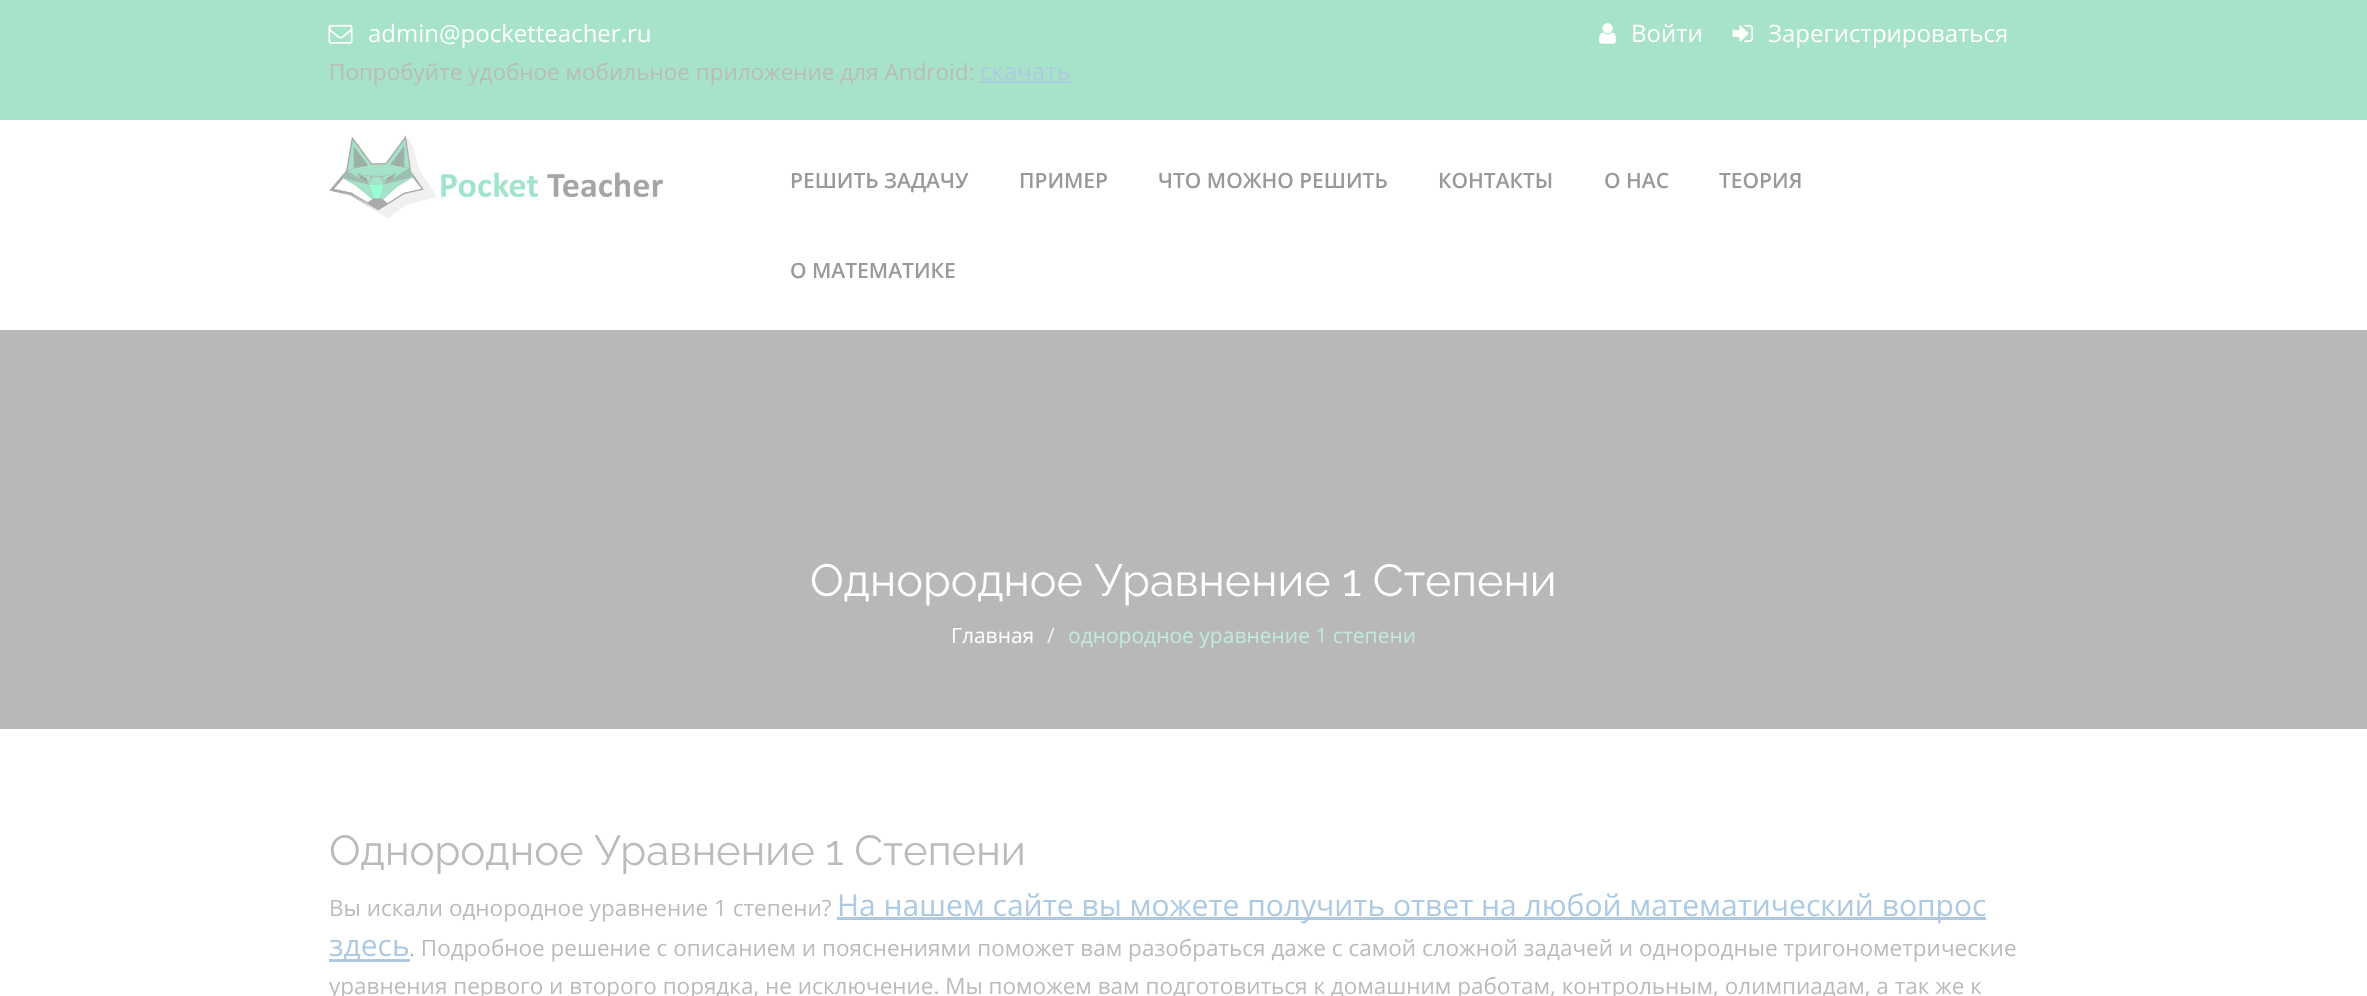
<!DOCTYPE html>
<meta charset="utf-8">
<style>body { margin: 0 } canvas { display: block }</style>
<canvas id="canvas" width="2367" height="996"></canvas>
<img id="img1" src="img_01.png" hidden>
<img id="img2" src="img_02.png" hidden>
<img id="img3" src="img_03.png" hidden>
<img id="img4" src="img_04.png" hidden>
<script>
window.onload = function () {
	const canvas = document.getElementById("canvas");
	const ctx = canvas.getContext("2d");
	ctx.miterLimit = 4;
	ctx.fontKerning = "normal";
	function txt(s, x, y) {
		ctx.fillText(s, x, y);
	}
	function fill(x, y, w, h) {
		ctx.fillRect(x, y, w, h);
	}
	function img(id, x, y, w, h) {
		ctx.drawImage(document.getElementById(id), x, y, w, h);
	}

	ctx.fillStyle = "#FFFFFF";
	fill(0, 0, 2367, 996);
	ctx.fillStyle = "#A6E3C8";
	fill(0, 0, 2367, 120);
	img("img1", 328, 24, 25, 20);
	ctx.fillStyle = "#ADCAE2";
	fill(980, 81, 91, 2);
	img("img2", 1599, 23, 18, 21);
	img("img3", 1732, 24, 22, 18);
	img("img4", 329, 135, 334, 84);
	ctx.fillStyle = "#B8B8B8";
	fill(0, 330, 2367, 399);
	ctx.fillStyle = "#ADCAE2";
	fill(837, 917, 1149, 3);
	fill(329, 959, 81, 3);
	ctx.font = "24px Open Sans";
	ctx.fillStyle = "#FFFFFF";
	txt("admin@pocketteacher.ru", 368, 42);
	ctx.font = "22.5px Open Sans";
	ctx.fillStyle = "#BBBBBB";
	txt("Попробуйте удобное мобильное приложение для Android:", 329, 80);
	ctx.font = "24px Open Sans";
	ctx.fillStyle = "#ADCAE2";
	txt("cкачать", 980, 80);
	ctx.fillStyle = "#FFFFFF";
	txt("Войти", 1631, 42);
	txt("Зарегистрироваться", 1768, 42);
	ctx.font = "600 21px Open Sans";
	ctx.fillStyle = "#999999";
	txt("РЕШИТЬ ЗАДАЧУ", 790, 188);
	txt("ПРИМЕР", 1019, 188);
	txt("ЧТО МОЖНО РЕШИТЬ", 1158, 188);
	txt("КОНТАКТЫ", 1438, 188);
	txt("О НАС", 1604, 188);
	txt("ТЕОРИЯ", 1719, 188);
	txt("О МАТЕМАТИКЕ", 790, 278);
	ctx.font = "45px Raleway";
	ctx.fillStyle = "#FFFFFF";
	txt("Однородное Уравнение 1 Степени", 810, 596);
	ctx.font = "21px Open Sans";
	txt("Главная", 951, 643);
	ctx.fillStyle = "#F1F1F1";
	txt("/", 1047, 643);
	ctx.fillStyle = "#C1EBD9";
	txt("однородное уравнение 1 степени", 1068, 643);
	ctx.font = "42px Raleway";
	ctx.fillStyle = "#BBBBBB";
	txt("Однородное Уравнение 1 Степени", 329, 865);
	ctx.font = "22.5px Open Sans";
	txt("Вы искали однородное уравнение 1 степени?", 329, 916);
	ctx.font = "30px Open Sans";
	ctx.fillStyle = "#ADCAE2";
	txt("На нашем сайте вы можете получить ответ на любой математический вопрос", 837, 916);
	txt("здесь", 329, 956);
	ctx.font = "22.5px Open Sans";
	ctx.fillStyle = "#BBBBBB";
	txt(". Подробное решение с описанием и пояснениями поможет вам разобраться даже с самой сложной задачей и однородные тригонометрические", 409, 956);
	txt("уравнения первого и второго порядка, не исключение. Мы поможем вам подготовиться к домашним работам, контрольным, олимпиадам, а так же к", 329, 994);
};
</script>
